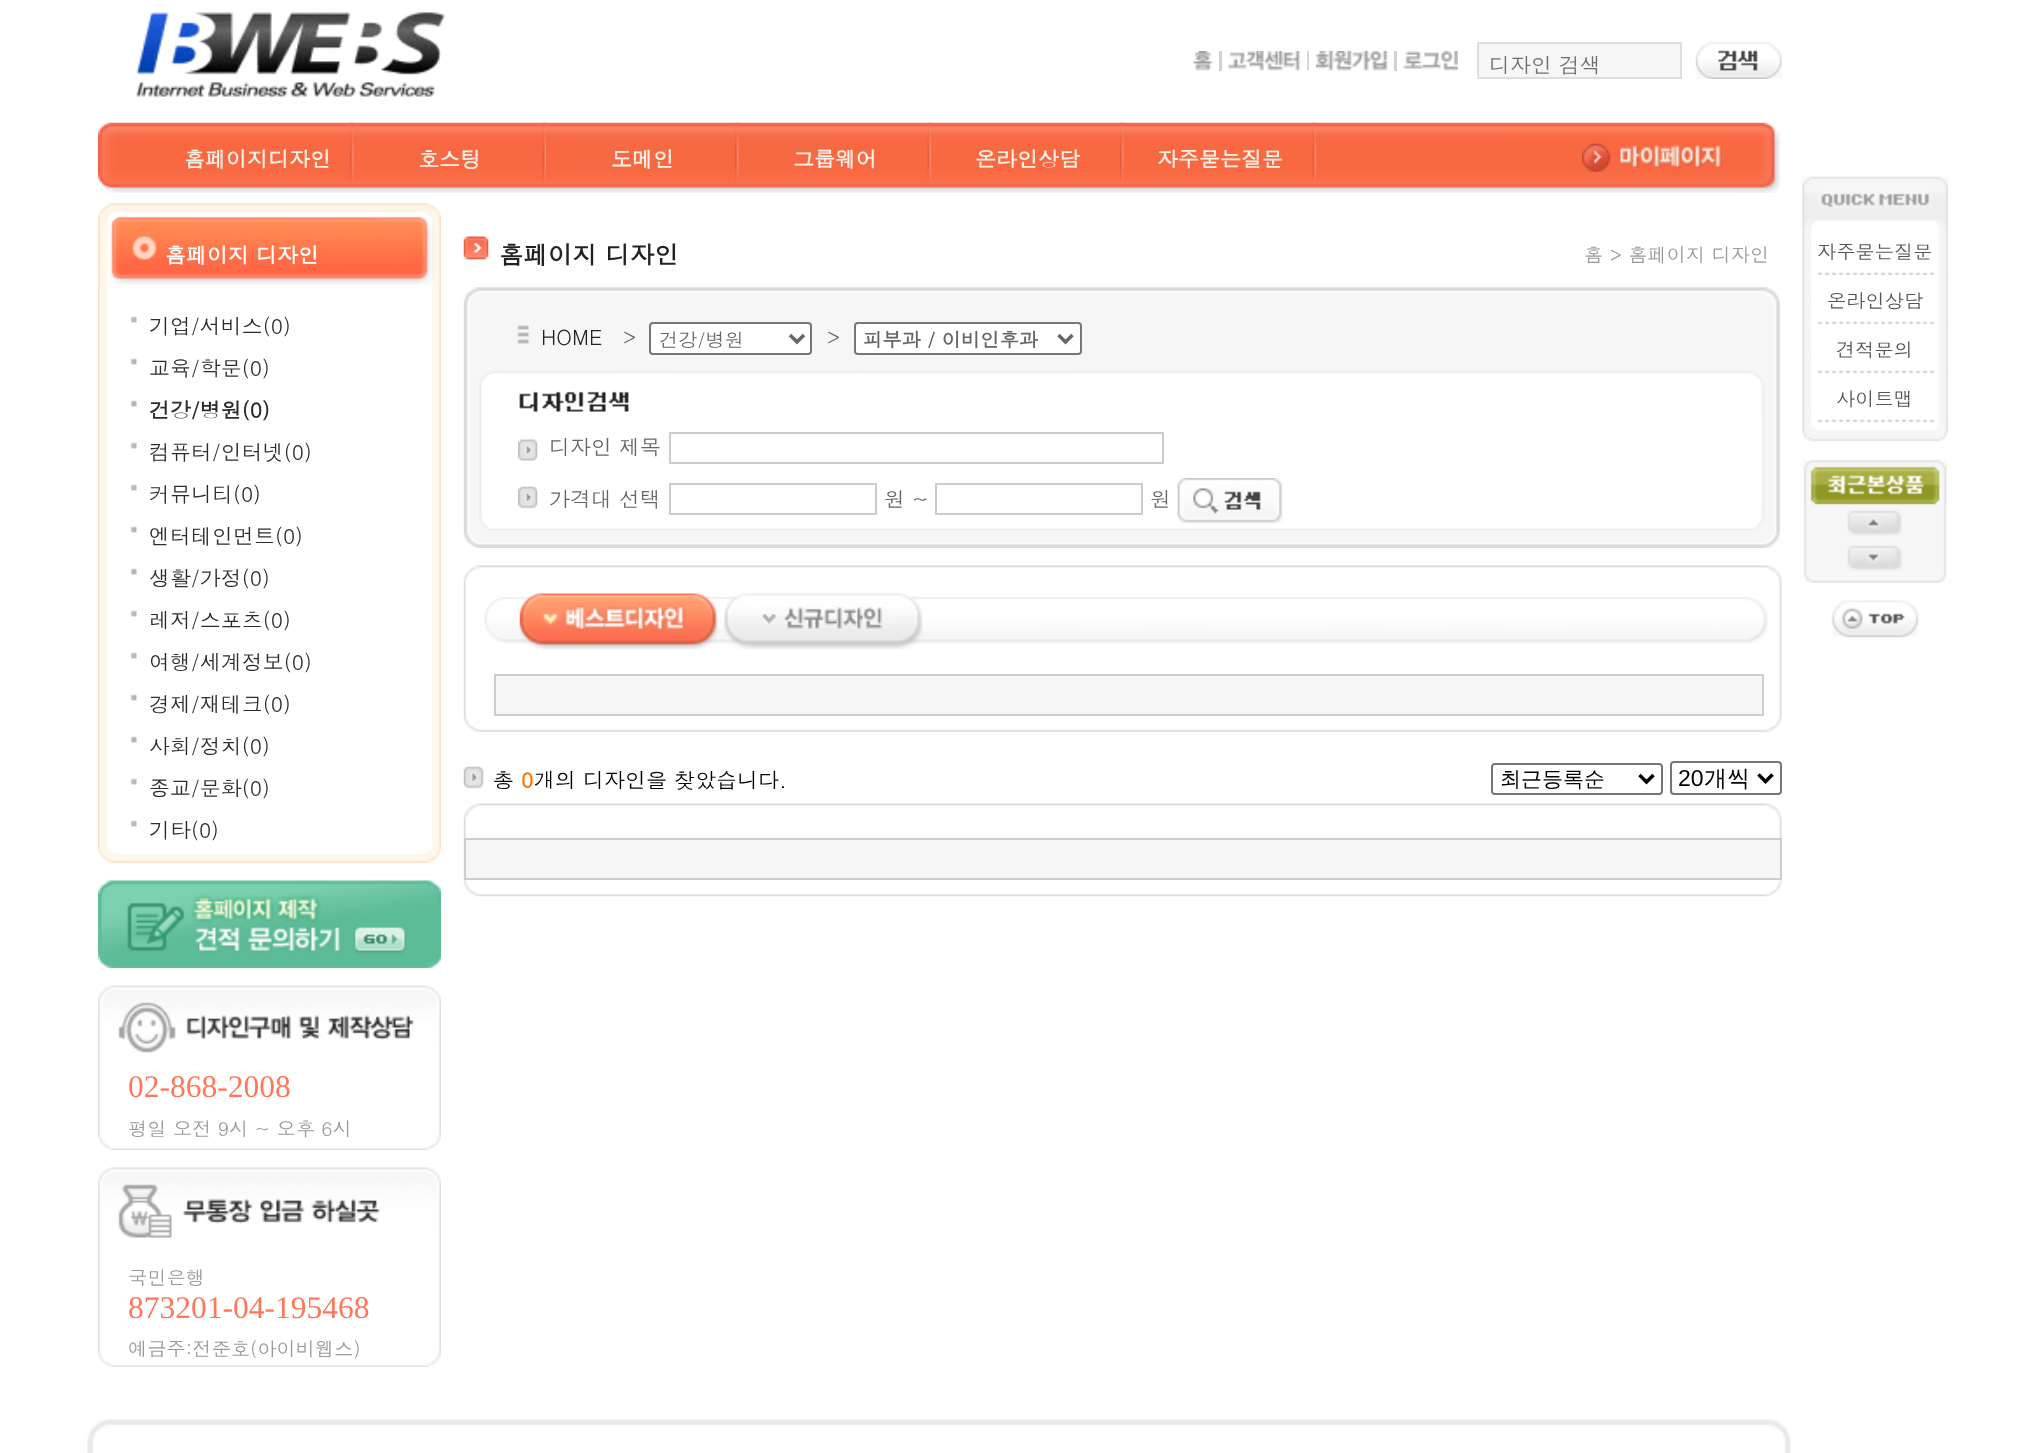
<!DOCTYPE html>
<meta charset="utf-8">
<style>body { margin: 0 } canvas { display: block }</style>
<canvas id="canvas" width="2044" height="1453"></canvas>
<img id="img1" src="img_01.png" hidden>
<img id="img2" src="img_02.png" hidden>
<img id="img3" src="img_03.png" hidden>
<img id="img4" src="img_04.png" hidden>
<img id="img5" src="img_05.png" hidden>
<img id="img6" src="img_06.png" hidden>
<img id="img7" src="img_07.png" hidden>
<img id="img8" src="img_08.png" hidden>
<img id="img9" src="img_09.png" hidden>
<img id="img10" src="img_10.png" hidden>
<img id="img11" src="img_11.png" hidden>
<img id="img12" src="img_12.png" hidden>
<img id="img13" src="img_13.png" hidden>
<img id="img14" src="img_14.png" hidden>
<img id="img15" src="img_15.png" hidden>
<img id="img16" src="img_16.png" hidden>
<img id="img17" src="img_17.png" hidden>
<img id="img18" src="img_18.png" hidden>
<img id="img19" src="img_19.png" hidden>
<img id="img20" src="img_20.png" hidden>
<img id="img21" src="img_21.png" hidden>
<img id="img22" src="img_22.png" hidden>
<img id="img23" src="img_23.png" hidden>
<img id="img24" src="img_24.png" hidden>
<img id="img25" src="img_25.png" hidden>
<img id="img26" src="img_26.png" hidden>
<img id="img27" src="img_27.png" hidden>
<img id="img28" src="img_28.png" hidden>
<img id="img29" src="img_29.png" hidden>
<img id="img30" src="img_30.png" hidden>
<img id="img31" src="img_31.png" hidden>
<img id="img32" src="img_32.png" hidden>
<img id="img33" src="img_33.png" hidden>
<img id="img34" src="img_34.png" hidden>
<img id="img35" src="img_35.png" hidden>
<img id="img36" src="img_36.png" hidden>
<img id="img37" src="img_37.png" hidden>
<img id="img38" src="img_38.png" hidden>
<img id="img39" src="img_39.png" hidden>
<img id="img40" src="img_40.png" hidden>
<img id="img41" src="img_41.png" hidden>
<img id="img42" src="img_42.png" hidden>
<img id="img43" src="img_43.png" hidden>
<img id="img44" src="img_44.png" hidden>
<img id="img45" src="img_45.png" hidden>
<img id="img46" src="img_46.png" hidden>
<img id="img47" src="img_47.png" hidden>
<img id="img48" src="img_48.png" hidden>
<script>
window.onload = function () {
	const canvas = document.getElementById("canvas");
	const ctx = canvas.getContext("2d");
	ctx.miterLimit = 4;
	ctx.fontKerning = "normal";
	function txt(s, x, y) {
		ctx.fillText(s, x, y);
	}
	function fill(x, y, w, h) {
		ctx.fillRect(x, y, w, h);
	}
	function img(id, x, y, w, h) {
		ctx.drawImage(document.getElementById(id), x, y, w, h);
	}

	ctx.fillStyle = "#FFFFFF";
	fill(0, 0, 2044, 1453);
	img("img1", 133, 12, 312, 85);
	img("img2", 1193, 51, 20, 20);
	ctx.fillStyle = "#D1D1D1";
	fill(1219, 51, 3, 20);
	img("img3", 1228, 51, 73, 20);
	img("img4", 1307, 51, 2, 20);
	img("img5", 1316, 51, 72, 20);
	fill(1394, 51, 3, 20);
	img("img6", 1403, 51, 55, 20);
	ctx.fillStyle = "#F6F6F6";
	ctx.beginPath();
	ctx.rect(1478, 43, 203, 35);
	ctx.fill();
	ctx.strokeStyle = "#DEDEDE";
	ctx.lineWidth = 2;
	ctx.stroke();
	img("img7", 1695, 42, 87, 37);
	img("img8", 98, 122, 1682, 71);
	img("img9", 350, 122, 4, 59);
	img("img10", 542, 122, 4, 59);
	img("img11", 735, 122, 4, 59);
	img("img12", 927, 122, 4, 59);
	img("img13", 1120, 122, 4, 59);
	img("img14", 1312, 122, 4, 59);
	img("img15", 1582, 143, 140, 29);
	img("img16", 98, 203, 343, 83);
	img("img17", 98, 285, 343, 563);
	img("img18", 130, 316, 7, 7);
	img("img18", 130, 358, 7, 7);
	img("img18", 130, 400, 7, 7);
	img("img18", 130, 442, 7, 7);
	img("img18", 130, 484, 7, 7);
	img("img18", 130, 526, 7, 7);
	img("img18", 130, 568, 7, 7);
	img("img18", 130, 610, 7, 7);
	img("img18", 130, 652, 7, 7);
	img("img18", 130, 694, 7, 7);
	img("img18", 130, 736, 7, 7);
	img("img18", 130, 778, 7, 7);
	img("img18", 130, 820, 7, 7);
	img("img19", 98, 847, 343, 16);
	img("img20", 98, 880, 343, 88);
	img("img21", 98, 985, 343, 165);
	img("img22", 98, 1167, 343, 200);
	img("img23", 463, 236, 26, 24);
	img("img24", 463, 287, 1317, 261);
	ctx.fillStyle = "#FFFFFF";
	ctx.beginPath();
	ctx.roundRect(650, 323, 161, 31, 3);
	ctx.fill();
	ctx.strokeStyle = "#767676";
	ctx.stroke();
	ctx.beginPath();
	ctx.moveTo(790, 335);
	ctx.lineTo(797, 342);
	ctx.lineTo(804, 335);
	ctx.strokeStyle = "#666666";
	ctx.lineWidth = 3.5;
	ctx.stroke();
	ctx.beginPath();
	ctx.roundRect(855, 323, 226, 31, 3);
	ctx.fill();
	ctx.strokeStyle = "#767676";
	ctx.lineWidth = 2;
	ctx.stroke();
	ctx.beginPath();
	ctx.moveTo(1058.5, 335);
	ctx.lineTo(1065.5, 342);
	ctx.lineTo(1072.5, 335);
	ctx.strokeStyle = "#666666";
	ctx.lineWidth = 3.5;
	ctx.stroke();
	img("img25", 518, 439, 20, 22);
	ctx.strokeStyle = "#CCCCCC";
	ctx.lineWidth = 2;
	ctx.strokeRect(670, 433, 493, 30);
	img("img26", 518, 486, 20, 23);
	ctx.strokeRect(670, 484, 206, 30);
	ctx.strokeRect(936, 484, 206, 30);
	img("img27", 1177, 478, 106, 46);
	img("img28", 463, 565, 1319, 16);
	img("img29", 463, 581, 1319, 135);
	img("img30", 484, 597, 1284, 47);
	img("img31", 519, 593, 199, 57);
	img("img32", 724, 593, 199, 57);
	ctx.fillStyle = "#F6F6F6";
	ctx.beginPath();
	ctx.rect(495, 675, 1268, 40);
	ctx.fill();
	ctx.strokeStyle = "#CDCDCD";
	ctx.stroke();
	img("img33", 463, 716, 1319, 16);
	img("img34", 463, 766, 21, 23);
	ctx.beginPath();
	ctx.roundRect(1492, 764, 170, 30, 3);
	ctx.strokeStyle = "#767676";
	ctx.stroke();
	ctx.beginPath();
	ctx.moveTo(1639.5, 775);
	ctx.lineTo(1646.5, 782);
	ctx.lineTo(1653.5, 775);
	ctx.strokeStyle = "#000000";
	ctx.lineWidth = 3.5;
	ctx.stroke();
	ctx.beginPath();
	ctx.roundRect(1671, 762, 110, 32, 3);
	ctx.strokeStyle = "#767676";
	ctx.lineWidth = 2;
	ctx.stroke();
	ctx.beginPath();
	ctx.moveTo(1758.5, 774.5);
	ctx.lineTo(1765.5, 781.5);
	ctx.lineTo(1772.5, 774.5);
	ctx.strokeStyle = "#000000";
	ctx.lineWidth = 3.5;
	ctx.stroke();
	img("img28", 463, 803, 1319, 16);
	img("img35", 463, 819, 1319, 62);
	ctx.beginPath();
	ctx.rect(465, 839, 1316, 40);
	ctx.fill();
	ctx.strokeStyle = "#CDCDCD";
	ctx.lineWidth = 2;
	ctx.stroke();
	img("img36", 463, 880, 1319, 17);
	img("img37", 1802, 176, 146, 257);
	img("img38", 1802, 176, 146, 50);
	img("img39", 1802, 272, 146, 3);
	img("img39", 1802, 321, 146, 3);
	img("img40", 1802, 370, 146, 3);
	img("img39", 1802, 419, 146, 3);
	img("img41", 1802, 427, 146, 15);
	img("img42", 1803, 459, 144, 116);
	img("img43", 1804, 460, 143, 45);
	img("img44", 1847, 510, 55, 26);
	img("img45", 1847, 545, 55, 26);
	img("img46", 1803, 574, 144, 9);
	img("img47", 1831, 600, 88, 38);
	img("img48", 87, 1419, 1704, 34);
	ctx.font = "21px Dotum";
	ctx.fillStyle = "#6E6E6E";
	txt("디자인 검색", 1489, 73);
	ctx.font = "bold 21px Dotum";
	ctx.fillStyle = "#F4F0E7";
	txt("홈페이지디자인", 184, 167);
	txt("호스팅", 418, 167);
	txt("도메인", 611, 167);
	txt("그룹웨어", 793, 167);
	txt("온라인상담", 975, 167);
	txt("자주묻는질문", 1157, 167);
	ctx.fillStyle = "#FFFFFF";
	txt("홈페이지 디자인", 165, 263);
	ctx.font = "21px Dotum";
	ctx.fillStyle = "#2C2C2C";
	txt("기업/서비스(0)", 149, 334);
	txt("교육/학문(0)", 149, 376);
	ctx.font = "bold 21px Dotum";
	txt("건강/병원(0)", 149, 418);
	ctx.font = "21px Dotum";
	txt("컴퓨터/인터넷(0)", 149, 460);
	txt("커뮤니티(0)", 149, 502);
	txt("엔터테인먼트(0)", 149, 544);
	txt("생활/가정(0)", 149, 586);
	txt("레저/스포츠(0)", 149, 628);
	txt("여행/세계정보(0)", 149, 670);
	txt("경제/재테크(0)", 149, 712);
	txt("사회/정치(0)", 149, 754);
	txt("종교/문화(0)", 149, 796);
	txt("기타(0)", 149, 838);
	ctx.font = "31.5px Liberation Serif";
	ctx.fillStyle = "#FF7759";
	txt("02-868-2008", 128, 1097);
	ctx.font = "19.25px Dotum";
	ctx.fillStyle = "#999999";
	txt("평일 오전 9시 ~ 오후 6시", 128, 1136);
	txt("국민은행", 128, 1285);
	ctx.font = "31.5px Liberation Serif";
	ctx.fillStyle = "#FF7759";
	txt("873201-04-195468", 128, 1318);
	ctx.font = "19.25px Dotum";
	ctx.fillStyle = "#999999";
	txt("예금주:전준호(아이비웹스)", 128, 1356);
	ctx.font = "bold 24.5px Dotum";
	ctx.fillStyle = "#222222";
	txt("홈페이지 디자인", 499, 264);
	ctx.font = "19.25px Dotum";
	ctx.fillStyle = "#999999";
	txt("홈 > 홈페이지 디자인", 1584, 262);
	ctx.font = "21px Dotum";
	ctx.fillStyle = "#222222";
	txt("HOME", 541, 345);
	ctx.fillStyle = "#666666";
	txt(">", 623, 345);
	ctx.font = "19.25px Dotum";
	txt("건강/병원", 659, 347);
	ctx.font = "21px Dotum";
	txt(">", 827, 345);
	ctx.font = "bold 19.25px Dotum";
	txt("피부과 / 이비인후과", 863, 347);
	ctx.font = "21px Dotum";
	txt("디자인 제목", 549, 455);
	txt("가격대 선택", 549, 507);
	txt("원 ~", 884, 507);
	txt("원", 1150, 507);
	ctx.fillStyle = "#000000";
	txt("총", 493, 788);
	ctx.font = "bold 21px Dotum";
	ctx.fillStyle = "#FF7200";
	txt("0", 521, 788);
	ctx.font = "21px Dotum";
	ctx.fillStyle = "#000000";
	txt("개의 디자인을 찾았습니다.", 534, 788);
	ctx.font = "500 21px WenQuanYi Zen Hei";
	txt("최근등록순", 1500, 786);
	ctx.font = "23px Liberation Sans";
	txt("20", 1678, 786);
	ctx.font = "500 23px WenQuanYi Zen Hei";
	txt("개씩", 1704, 786);
	ctx.font = "19.25px Dotum";
	ctx.fillStyle = "#555555";
	txt("자주묻는질문", 1817, 259);
	txt("온라인상담", 1827, 308);
	txt("견적문의", 1836, 357);
	txt("사이트맵", 1836, 406);
};
</script>
